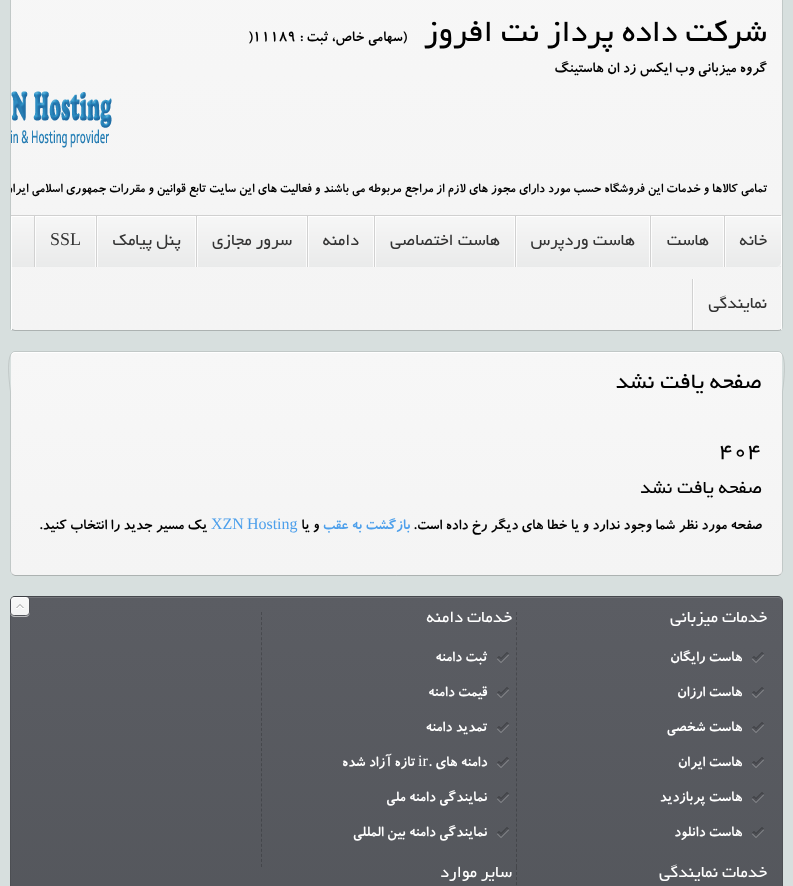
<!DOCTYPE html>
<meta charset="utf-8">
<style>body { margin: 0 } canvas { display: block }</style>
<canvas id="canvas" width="793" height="886"></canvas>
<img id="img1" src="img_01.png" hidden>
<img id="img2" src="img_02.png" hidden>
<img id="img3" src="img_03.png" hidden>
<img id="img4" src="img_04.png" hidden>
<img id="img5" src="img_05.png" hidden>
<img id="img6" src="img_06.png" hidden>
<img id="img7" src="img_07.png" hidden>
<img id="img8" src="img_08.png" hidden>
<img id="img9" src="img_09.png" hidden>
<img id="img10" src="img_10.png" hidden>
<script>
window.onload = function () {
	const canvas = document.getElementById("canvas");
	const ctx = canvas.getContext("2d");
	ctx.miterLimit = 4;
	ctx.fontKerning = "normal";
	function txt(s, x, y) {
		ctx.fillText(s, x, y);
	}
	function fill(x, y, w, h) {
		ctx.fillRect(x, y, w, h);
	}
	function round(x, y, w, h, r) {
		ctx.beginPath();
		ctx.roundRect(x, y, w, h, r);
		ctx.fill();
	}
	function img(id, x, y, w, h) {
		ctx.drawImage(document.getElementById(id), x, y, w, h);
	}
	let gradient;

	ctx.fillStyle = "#D7DFDE";
	fill(0, 0, 793, 886);
	gradient = ctx.createLinearGradient(397, -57, 397, 330);
	gradient.addColorStop(0, "#F7F7F7");
	gradient.addColorStop(1, "#F4F4F4");
	ctx.fillStyle = gradient;
	ctx.beginPath();
	ctx.moveTo(11, -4);
	ctx.lineTo(782, -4);
	ctx.lineTo(782, 326);
	ctx.bezierCurveTo(782, 328, 780, 330, 778, 330);
	ctx.lineTo(15, 330);
	ctx.bezierCurveTo(13, 330, 11, 328, 11, 326);
	ctx.closePath();
	ctx.fill();
	ctx.fillStyle = "rgba(0, 0, 0, 0.1)";
	ctx.beginPath();
	ctx.moveTo(783, -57);
	ctx.lineTo(782, -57);
	ctx.lineTo(782, 326);
	ctx.lineTo(781, 329);
	ctx.lineTo(782, 330);
	ctx.bezierCurveTo(782, 329, 783, 328, 783, 326);
	ctx.closePath();
	ctx.fill();
	ctx.fillStyle = "rgba(0, 0, 0, 0.2)";
	ctx.beginPath();
	ctx.moveTo(15, 331);
	ctx.lineTo(778, 331);
	ctx.bezierCurveTo(780, 331, 781, 330, 782, 330);
	ctx.lineTo(781, 329);
	ctx.lineTo(778, 330);
	ctx.lineTo(15, 330);
	ctx.lineTo(12, 329);
	ctx.lineTo(11, 330);
	ctx.bezierCurveTo(12, 330, 14, 331, 15, 331);
	ctx.closePath();
	ctx.fill();
	ctx.fillStyle = "rgba(0, 0, 0, 0.1)";
	ctx.beginPath();
	ctx.moveTo(10, -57);
	ctx.lineTo(11, -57);
	ctx.lineTo(11, 326);
	ctx.lineTo(12, 329);
	ctx.lineTo(11, 330);
	ctx.bezierCurveTo(10, 329, 10, 328, 10, 326);
	ctx.closePath();
	ctx.fill();
	img("img1", 11, 91, 101, 57);
	img("img2", 11, 215, 771, 52);
	ctx.fillStyle = "rgba(255, 255, 255, 0.8)";
	ctx.beginPath();
	ctx.moveTo(777, 330);
	ctx.lineTo(778, 330);
	ctx.bezierCurveTo(780, 330, 782, 328, 782, 326);
	ctx.lineTo(782, 215);
	ctx.lineTo(781, 215);
	ctx.lineTo(781, 326);
	ctx.bezierCurveTo(781, 328, 779, 330, 777, 330);
	ctx.closePath();
	ctx.fill();
	ctx.fillStyle = "#FFFFFF";
	fill(11, 216, 1, 114);
	ctx.fillStyle = "rgba(255, 255, 255, 0.8)";
	fill(725, 216, 1, 51);
	ctx.beginPath();
	ctx.moveTo(776, 267);
	ctx.lineTo(777, 267);
	ctx.bezierCurveTo(780, 267, 782, 265, 782, 262);
	ctx.lineTo(782, 216);
	ctx.lineTo(781, 216);
	ctx.lineTo(781, 262);
	ctx.bezierCurveTo(781, 265, 779, 267, 776, 267);
	ctx.closePath();
	ctx.fill();
	ctx.fillStyle = "#D1D1D1";
	fill(724, 216, 1, 51);
	ctx.fillStyle = "rgba(255, 255, 255, 0.8)";
	fill(651, 216, 1, 51);
	fill(723, 216, 1, 51);
	ctx.fillStyle = "#D1D1D1";
	fill(650, 216, 1, 51);
	ctx.fillStyle = "rgba(255, 255, 255, 0.8)";
	fill(516, 216, 1, 51);
	fill(649, 216, 1, 51);
	ctx.fillStyle = "#D1D1D1";
	fill(515, 216, 1, 51);
	ctx.fillStyle = "rgba(255, 255, 255, 0.8)";
	fill(375, 216, 1, 51);
	fill(514, 216, 1, 51);
	ctx.fillStyle = "#D1D1D1";
	fill(374, 216, 1, 51);
	ctx.fillStyle = "rgba(255, 255, 255, 0.8)";
	fill(308, 216, 1, 51);
	fill(373, 216, 1, 51);
	ctx.fillStyle = "#D1D1D1";
	fill(307, 216, 1, 51);
	ctx.fillStyle = "rgba(255, 255, 255, 0.8)";
	fill(197, 216, 1, 51);
	fill(306, 216, 1, 51);
	ctx.fillStyle = "#D1D1D1";
	fill(196, 216, 1, 51);
	ctx.fillStyle = "rgba(255, 255, 255, 0.8)";
	fill(97, 216, 1, 51);
	fill(195, 216, 1, 51);
	ctx.fillStyle = "#D1D1D1";
	fill(96, 216, 1, 51);
	ctx.fillStyle = "rgba(255, 255, 255, 0.8)";
	fill(35, 216, 1, 51);
	fill(95, 216, 1, 51);
	ctx.fillStyle = "#D1D1D1";
	fill(34, 216, 1, 51);
	ctx.fillStyle = "#FDFDFD";
	fill(693, 279, 1, 51);
	ctx.fillStyle = "rgba(255, 255, 255, 0.8)";
	fill(781, 326, 1, 4);
	ctx.fillStyle = "#D1D1D1";
	fill(692, 279, 1, 51);
	gradient = ctx.createLinearGradient(397, 352, 397, 575);
	gradient.addColorStop(0, "#F7F7F7");
	gradient.addColorStop(1, "#F4F4F4");
	ctx.fillStyle = gradient;
	round(11, 352, 771, 223, 4);
	ctx.fillStyle = "#FFFFFF";
	ctx.beginPath();
	ctx.moveTo(15, 353);
	ctx.lineTo(778, 353);
	ctx.bezierCurveTo(780, 353, 782, 355, 782, 357);
	ctx.lineTo(782, 356);
	ctx.bezierCurveTo(782, 354, 780, 352, 778, 352);
	ctx.lineTo(15, 352);
	ctx.bezierCurveTo(13, 352, 11, 354, 11, 356);
	ctx.lineTo(11, 357);
	ctx.bezierCurveTo(11, 355, 13, 353, 15, 353);
	ctx.closePath();
	ctx.fill();
	ctx.beginPath();
	ctx.moveTo(781, 574);
	ctx.lineTo(778, 575.5);
	ctx.lineTo(15, 575.5);
	ctx.lineTo(12, 574);
	ctx.strokeStyle = "rgba(0, 0, 0, 0.2)";
	ctx.stroke();
	ctx.beginPath();
	ctx.moveTo(12, 574);
	ctx.lineTo(10.5, 571);
	ctx.lineTo(10.5, 392);
	ctx.bezierCurveTo(10.5, 389.5, 4, 351.5, 15, 351.5);
	ctx.lineTo(778, 351.5);
	ctx.bezierCurveTo(789, 351.5, 782.5, 389.5, 782.5, 392);
	ctx.lineTo(782.5, 571);
	ctx.lineTo(781, 574);
	ctx.strokeStyle = "rgba(0, 0, 0, 0.1)";
	ctx.stroke();
	ctx.save();
	ctx.beginPath();
	ctx.roundRect(10, 596, 773, 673, 5);
	ctx.clip();
	gradient = ctx.createLinearGradient(396, -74, 397, 597);
	gradient.addColorStop(0, "#5B5D63");
	gradient.addColorStop(1, "#4D5055");
	ctx.fillStyle = gradient;
	fill(10, 596, 773, 1);
	gradient = ctx.createLinearGradient(396, 597, 397, 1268);
	gradient.addColorStop(0, "#5B5D63");
	gradient.addColorStop(1, "#4D5055");
	ctx.fillStyle = gradient;
	fill(10, 597, 773, 289);
	ctx.restore();
	ctx.fillStyle = "#74757A";
	ctx.beginPath();
	ctx.moveTo(15, 598);
	ctx.lineTo(778, 598);
	ctx.bezierCurveTo(780, 598, 782, 600, 782, 602);
	ctx.lineTo(782, 601);
	ctx.bezierCurveTo(782, 599, 780, 597, 778, 597);
	ctx.lineTo(15, 597);
	ctx.bezierCurveTo(13, 597, 11, 599, 11, 601);
	ctx.lineTo(11, 602);
	ctx.bezierCurveTo(11, 600, 13, 598, 15, 598);
	ctx.closePath();
	ctx.fill();
	ctx.beginPath();
	ctx.moveTo(12, 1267);
	ctx.bezierCurveTo(11, 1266.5, 10.5, 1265, 10.5, 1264);
	ctx.lineTo(10.5, 601);
	ctx.bezierCurveTo(10.5, 600, 11, 598.5, 12, 598);
	ctx.bezierCurveTo(12.5, 597, 14, 596.5, 15, 596.5);
	ctx.lineTo(778, 596.5);
	ctx.bezierCurveTo(779, 596.5, 780.5, 597, 781, 598);
	ctx.bezierCurveTo(782, 598.5, 782.5, 600, 782.5, 601);
	ctx.lineTo(782.5, 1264);
	ctx.bezierCurveTo(782.5, 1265, 782, 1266.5, 781, 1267);
	ctx.stroke();
	img("img3", 10, 596, 20, 21);
	ctx.beginPath();
	ctx.moveTo(516.5, 612);
	ctx.lineTo(516.5, 867);
	ctx.strokeStyle = "rgba(0, 0, 0, 0.2)";
	ctx.setLineDash([3, 2.04]);
	ctx.stroke();
	img("img4", 752, 652, 12, 11);
	img("img5", 752, 687, 12, 11);
	img("img6", 752, 722, 12, 11);
	img("img7", 752, 757, 12, 11);
	img("img8", 752, 792, 12, 11);
	img("img9", 752, 827, 12, 11);
	ctx.beginPath();
	ctx.moveTo(261.5, 612);
	ctx.lineTo(261.5, 867);
	ctx.stroke();
	img("img4", 497, 652, 12, 11);
	img("img5", 497, 687, 12, 11);
	img("img6", 497, 722, 12, 11);
	img("img10", 497, 757, 12, 11);
	img("img8", 497, 792, 12, 11);
	img("img9", 497, 827, 12, 11);
	ctx.beginPath();
	ctx.moveTo(516.5, 867);
	ctx.lineTo(516.5, 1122);
	ctx.strokeStyle = "#44464A";
	ctx.stroke();
	ctx.direction = "rtl";
	ctx.font = "34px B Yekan";
	ctx.fillStyle = "#000000";
	txt("شرکت داده پرداز نت افروز", 767, 41);
	ctx.font = "bold 16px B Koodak";
	txt("(سهامی خاص، ثبت :", 407, 41);
	ctx.direction = "ltr";
	txt(")۱۱۱۸۹", 248, 41);
	ctx.direction = "rtl";
	txt("گروه میزبانی وب ایکس زد ان هاستینگ", 767, 72);
	ctx.save();
	ctx.beginPath();
	ctx.rect(11, 5, 771, 210);
	ctx.clip();
	ctx.font = "bold 14px B Koodak";
	txt("تمامی کالاها و خدمات این فروشگاه حسب مورد دارای مجوز های لازم از مراجع مربوطه می باشند و فعالیت های این سایت تابع قوانین و مقررات جمهوری اسلامی ایران است.", 767, 192);
	ctx.restore();
	ctx.font = "18px B Yekan";
	ctx.fillStyle = "#333333";
	txt("خانه", 767, 245);
	txt("هاست", 709, 245);
	txt("هاست وردپرس", 635, 245);
	txt("هاست اختصاصی", 500, 245);
	txt("دامنه", 359, 245);
	txt("سرور مجازی", 292, 245);
	txt("پنل پیامک", 181, 245);
	ctx.direction = "ltr";
	ctx.font = "18px Liberation Serif";
	txt("SSL", 50, 245);
	ctx.direction = "rtl";
	ctx.font = "18px B Yekan";
	txt("نمایندگی", 767, 308);
	ctx.font = "24px B Yekan";
	ctx.fillStyle = "#000000";
	txt("صفحه یافت نشد", 762, 388);
	ctx.direction = "ltr";
	txt("404", 719, 457);
	ctx.direction = "rtl";
	ctx.font = "20px B Yekan";
	txt("صفحه یافت نشد", 762, 493);
	ctx.font = "bold 16px B Koodak";
	txt("صفحه مورد نظر شما وجود ندارد و یا خطا های دیگر رخ داده است.", 762, 529);
	ctx.fillStyle = "#4C9FEB";
	txt("بازگشت به عقب", 410, 529);
	ctx.fillStyle = "#000000";
	txt("و یا", 319, 529);
	ctx.wordSpacing = "-1px";
	ctx.direction = "ltr";
	ctx.font = "16px Liberation Serif";
	ctx.fillStyle = "#4C9FEB";
	txt("XZN Hosting", 211, 529);
	ctx.wordSpacing = "0px";
	ctx.direction = "rtl";
	ctx.font = "bold 16px B Koodak";
	ctx.fillStyle = "#000000";
	txt("یک مسیر جدید را انتخاب کنید.", 207, 529);
	ctx.font = "18px B Yekan";
	ctx.fillStyle = "#FFFFFF";
	txt("خدمات میزبانی", 767, 622);
	ctx.font = "bold 16px B Koodak";
	txt("هاست رایگان", 742, 661);
	txt("هاست ارزان", 742, 696);
	txt("هاست شخصی", 742, 731);
	txt("هاست ایران", 742, 766);
	txt("هاست پربازدید", 742, 801);
	txt("هاست دانلود", 742, 836);
	ctx.font = "18px B Yekan";
	txt("خدمات دامنه", 512, 622);
	ctx.font = "bold 16px B Koodak";
	txt("ثبت دامنه", 487, 661);
	txt("قیمت دامنه", 487, 696);
	txt("تمدید دامنه", 487, 731);
	txt("دامنه های .", 487, 766);
	ctx.direction = "ltr";
	ctx.font = "16px Liberation Serif";
	txt("ir", 418, 766);
	ctx.direction = "rtl";
	ctx.font = "bold 16px B Koodak";
	txt("تازه آزاد شده", 415, 766);
	txt("نمایندگی دامنه ملی", 487, 801);
	txt("نمایندگی دامنه بین المللی", 487, 836);
	ctx.font = "18px B Yekan";
	txt("خدمات نمایندگی", 767, 877);
	txt("سایر موارد", 512, 877);
};
</script>
